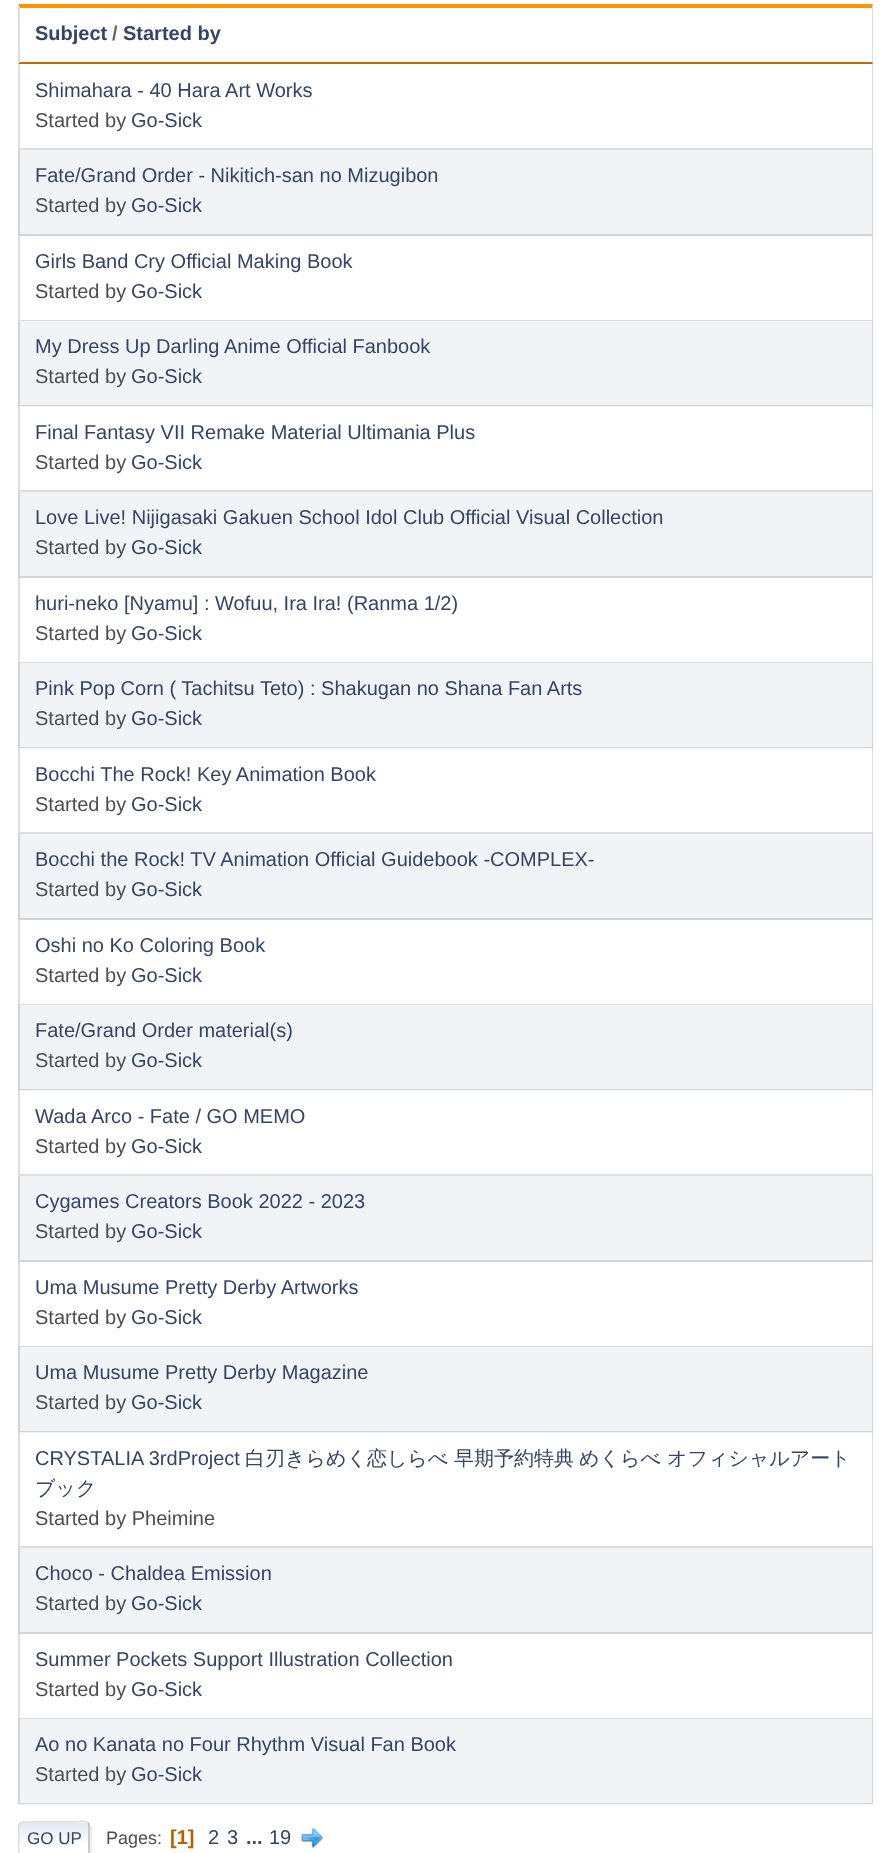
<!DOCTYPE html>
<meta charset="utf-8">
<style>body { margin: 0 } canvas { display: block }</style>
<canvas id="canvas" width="891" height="1853"></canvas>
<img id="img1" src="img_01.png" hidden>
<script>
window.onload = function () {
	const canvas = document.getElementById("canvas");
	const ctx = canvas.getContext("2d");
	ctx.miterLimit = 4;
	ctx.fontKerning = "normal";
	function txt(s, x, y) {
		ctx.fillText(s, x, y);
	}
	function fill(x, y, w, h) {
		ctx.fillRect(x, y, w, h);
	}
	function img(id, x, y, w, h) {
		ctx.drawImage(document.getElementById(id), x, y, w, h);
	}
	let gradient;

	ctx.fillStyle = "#FFFFFF";
	fill(0, 0, 891, 1853);
	ctx.fillStyle = "#FF9400";
	ctx.beginPath();
	ctx.moveTo(18, 4);
	ctx.lineTo(873, 4);
	ctx.lineTo(872, 8);
	ctx.lineTo(20, 8);
	ctx.closePath();
	ctx.fill();
	ctx.fillStyle = "#DDDDDD";
	ctx.beginPath();
	ctx.moveTo(873, 4);
	ctx.lineTo(873, 64);
	ctx.lineTo(872, 62);
	ctx.lineTo(872, 8);
	ctx.closePath();
	ctx.fill();
	ctx.fillStyle = "#BF6900";
	ctx.beginPath();
	ctx.moveTo(873, 64);
	ctx.lineTo(18, 64);
	ctx.lineTo(20, 62);
	ctx.lineTo(872, 62);
	ctx.closePath();
	ctx.fill();
	ctx.fillStyle = "#DDDDDD";
	ctx.beginPath();
	ctx.moveTo(18, 64);
	ctx.lineTo(18, 4);
	ctx.lineTo(20, 8);
	ctx.lineTo(20, 62);
	ctx.closePath();
	ctx.fill();
	ctx.fillStyle = "#DCDCDC";
	ctx.beginPath();
	ctx.moveTo(873, 64);
	ctx.lineTo(873, 150);
	ctx.lineTo(872, 148);
	ctx.lineTo(872, 64);
	ctx.closePath();
	ctx.fill();
	ctx.fillStyle = "rgba(0, 0, 0, 0.13)";
	ctx.beginPath();
	ctx.moveTo(873, 150);
	ctx.lineTo(18, 150);
	ctx.lineTo(20, 148);
	ctx.lineTo(872, 148);
	ctx.closePath();
	ctx.fill();
	ctx.beginPath();
	ctx.moveTo(18, 150);
	ctx.lineTo(18, 64);
	ctx.lineTo(20, 64);
	ctx.lineTo(20, 148);
	ctx.closePath();
	ctx.fill();
	ctx.fillStyle = "#F0F4F7";
	fill(18, 150, 855, 86);
	ctx.fillStyle = "#D1D4D7";
	ctx.beginPath();
	ctx.moveTo(873, 150);
	ctx.lineTo(873, 236);
	ctx.lineTo(872, 234);
	ctx.lineTo(872, 150);
	ctx.closePath();
	ctx.fill();
	ctx.fillStyle = "rgba(0, 0, 0, 0.13)";
	ctx.beginPath();
	ctx.moveTo(873, 236);
	ctx.lineTo(18, 236);
	ctx.lineTo(20, 234);
	ctx.lineTo(872, 234);
	ctx.closePath();
	ctx.fill();
	ctx.beginPath();
	ctx.moveTo(18, 236);
	ctx.lineTo(18, 150);
	ctx.lineTo(20, 150);
	ctx.lineTo(20, 234);
	ctx.closePath();
	ctx.fill();
	ctx.fillStyle = "#DCDCDC";
	ctx.beginPath();
	ctx.moveTo(873, 236);
	ctx.lineTo(873, 321);
	ctx.lineTo(872, 320);
	ctx.lineTo(872, 236);
	ctx.closePath();
	ctx.fill();
	ctx.fillStyle = "rgba(0, 0, 0, 0.13)";
	ctx.beginPath();
	ctx.moveTo(873, 321);
	ctx.lineTo(18, 321);
	ctx.lineTo(20, 320);
	ctx.lineTo(872, 320);
	ctx.closePath();
	ctx.fill();
	ctx.beginPath();
	ctx.moveTo(18, 321);
	ctx.lineTo(18, 236);
	ctx.lineTo(20, 236);
	ctx.lineTo(20, 320);
	ctx.closePath();
	ctx.fill();
	ctx.fillStyle = "#F0F4F7";
	fill(18, 321, 855, 86);
	ctx.fillStyle = "#D1D4D7";
	ctx.beginPath();
	ctx.moveTo(873, 321);
	ctx.lineTo(873, 406);
	ctx.lineTo(872, 405);
	ctx.lineTo(872, 321);
	ctx.closePath();
	ctx.fill();
	ctx.fillStyle = "rgba(0, 0, 0, 0.13)";
	ctx.beginPath();
	ctx.moveTo(873, 406);
	ctx.lineTo(18, 406);
	ctx.lineTo(20, 405);
	ctx.lineTo(872, 405);
	ctx.closePath();
	ctx.fill();
	ctx.beginPath();
	ctx.moveTo(18, 406);
	ctx.lineTo(18, 321);
	ctx.lineTo(20, 321);
	ctx.lineTo(20, 405);
	ctx.closePath();
	ctx.fill();
	ctx.beginPath();
	ctx.moveTo(873, 406);
	ctx.lineTo(873, 492);
	ctx.lineTo(872, 490);
	ctx.lineTo(872, 406);
	ctx.closePath();
	ctx.fill();
	ctx.beginPath();
	ctx.moveTo(873, 492);
	ctx.lineTo(18, 492);
	ctx.lineTo(20, 490);
	ctx.lineTo(872, 490);
	ctx.closePath();
	ctx.fill();
	ctx.beginPath();
	ctx.moveTo(18, 492);
	ctx.lineTo(18, 406);
	ctx.lineTo(20, 406);
	ctx.lineTo(20, 490);
	ctx.closePath();
	ctx.fill();
	ctx.fillStyle = "#F0F4F7";
	fill(18, 492, 855, 86);
	ctx.fillStyle = "#D1D4D7";
	ctx.beginPath();
	ctx.moveTo(873, 492);
	ctx.lineTo(873, 578);
	ctx.lineTo(872, 576);
	ctx.lineTo(872, 492);
	ctx.closePath();
	ctx.fill();
	ctx.fillStyle = "rgba(0, 0, 0, 0.13)";
	ctx.beginPath();
	ctx.moveTo(873, 578);
	ctx.lineTo(18, 578);
	ctx.lineTo(20, 576);
	ctx.lineTo(872, 576);
	ctx.closePath();
	ctx.fill();
	ctx.beginPath();
	ctx.moveTo(18, 578);
	ctx.lineTo(18, 492);
	ctx.lineTo(20, 492);
	ctx.lineTo(20, 576);
	ctx.closePath();
	ctx.fill();
	ctx.fillStyle = "#DCDCDC";
	ctx.beginPath();
	ctx.moveTo(873, 578);
	ctx.lineTo(873, 663);
	ctx.lineTo(872, 662);
	ctx.lineTo(872, 578);
	ctx.closePath();
	ctx.fill();
	ctx.fillStyle = "rgba(0, 0, 0, 0.13)";
	ctx.beginPath();
	ctx.moveTo(873, 663);
	ctx.lineTo(18, 663);
	ctx.lineTo(20, 662);
	ctx.lineTo(872, 662);
	ctx.closePath();
	ctx.fill();
	ctx.beginPath();
	ctx.moveTo(18, 663);
	ctx.lineTo(18, 578);
	ctx.lineTo(20, 578);
	ctx.lineTo(20, 662);
	ctx.closePath();
	ctx.fill();
	ctx.fillStyle = "#F0F4F7";
	fill(18, 663, 855, 86);
	ctx.fillStyle = "#D1D4D7";
	ctx.beginPath();
	ctx.moveTo(873, 663);
	ctx.lineTo(873, 748);
	ctx.lineTo(872, 747);
	ctx.lineTo(872, 663);
	ctx.closePath();
	ctx.fill();
	ctx.fillStyle = "rgba(0, 0, 0, 0.13)";
	ctx.beginPath();
	ctx.moveTo(873, 748);
	ctx.lineTo(18, 748);
	ctx.lineTo(20, 747);
	ctx.lineTo(872, 747);
	ctx.closePath();
	ctx.fill();
	ctx.beginPath();
	ctx.moveTo(18, 748);
	ctx.lineTo(18, 663);
	ctx.lineTo(20, 663);
	ctx.lineTo(20, 747);
	ctx.closePath();
	ctx.fill();
	ctx.beginPath();
	ctx.moveTo(873, 748);
	ctx.lineTo(873, 834);
	ctx.lineTo(872, 832);
	ctx.lineTo(872, 748);
	ctx.closePath();
	ctx.fill();
	ctx.beginPath();
	ctx.moveTo(873, 834);
	ctx.lineTo(18, 834);
	ctx.lineTo(20, 832);
	ctx.lineTo(872, 832);
	ctx.closePath();
	ctx.fill();
	ctx.beginPath();
	ctx.moveTo(18, 834);
	ctx.lineTo(18, 748);
	ctx.lineTo(20, 748);
	ctx.lineTo(20, 832);
	ctx.closePath();
	ctx.fill();
	ctx.fillStyle = "#F0F4F7";
	fill(18, 834, 855, 86);
	ctx.fillStyle = "#D1D4D7";
	ctx.beginPath();
	ctx.moveTo(873, 834);
	ctx.lineTo(873, 920);
	ctx.lineTo(872, 918);
	ctx.lineTo(872, 834);
	ctx.closePath();
	ctx.fill();
	ctx.fillStyle = "rgba(0, 0, 0, 0.13)";
	ctx.beginPath();
	ctx.moveTo(873, 920);
	ctx.lineTo(18, 920);
	ctx.lineTo(20, 918);
	ctx.lineTo(872, 918);
	ctx.closePath();
	ctx.fill();
	ctx.beginPath();
	ctx.moveTo(18, 920);
	ctx.lineTo(18, 834);
	ctx.lineTo(20, 834);
	ctx.lineTo(20, 918);
	ctx.closePath();
	ctx.fill();
	ctx.fillStyle = "#DCDCDC";
	ctx.beginPath();
	ctx.moveTo(873, 920);
	ctx.lineTo(873, 1005);
	ctx.lineTo(872, 1004);
	ctx.lineTo(872, 920);
	ctx.closePath();
	ctx.fill();
	ctx.fillStyle = "rgba(0, 0, 0, 0.13)";
	ctx.beginPath();
	ctx.moveTo(873, 1005);
	ctx.lineTo(18, 1005);
	ctx.lineTo(20, 1004);
	ctx.lineTo(872, 1004);
	ctx.closePath();
	ctx.fill();
	ctx.beginPath();
	ctx.moveTo(18, 1005);
	ctx.lineTo(18, 920);
	ctx.lineTo(20, 920);
	ctx.lineTo(20, 1004);
	ctx.closePath();
	ctx.fill();
	ctx.fillStyle = "#F0F4F7";
	fill(18, 1005, 855, 86);
	ctx.fillStyle = "#D1D4D7";
	ctx.beginPath();
	ctx.moveTo(873, 1005);
	ctx.lineTo(873, 1090);
	ctx.lineTo(872, 1089);
	ctx.lineTo(872, 1005);
	ctx.closePath();
	ctx.fill();
	ctx.fillStyle = "rgba(0, 0, 0, 0.13)";
	ctx.beginPath();
	ctx.moveTo(873, 1090);
	ctx.lineTo(18, 1090);
	ctx.lineTo(20, 1089);
	ctx.lineTo(872, 1089);
	ctx.closePath();
	ctx.fill();
	ctx.beginPath();
	ctx.moveTo(18, 1090);
	ctx.lineTo(18, 1005);
	ctx.lineTo(20, 1005);
	ctx.lineTo(20, 1089);
	ctx.closePath();
	ctx.fill();
	ctx.beginPath();
	ctx.moveTo(873, 1090);
	ctx.lineTo(873, 1176);
	ctx.lineTo(872, 1174);
	ctx.lineTo(872, 1090);
	ctx.closePath();
	ctx.fill();
	ctx.beginPath();
	ctx.moveTo(873, 1176);
	ctx.lineTo(18, 1176);
	ctx.lineTo(20, 1174);
	ctx.lineTo(872, 1174);
	ctx.closePath();
	ctx.fill();
	ctx.beginPath();
	ctx.moveTo(18, 1176);
	ctx.lineTo(18, 1090);
	ctx.lineTo(20, 1090);
	ctx.lineTo(20, 1174);
	ctx.closePath();
	ctx.fill();
	ctx.fillStyle = "#F0F4F7";
	fill(18, 1176, 855, 86);
	ctx.fillStyle = "#D1D4D7";
	ctx.beginPath();
	ctx.moveTo(873, 1176);
	ctx.lineTo(873, 1262);
	ctx.lineTo(872, 1260);
	ctx.lineTo(872, 1176);
	ctx.closePath();
	ctx.fill();
	ctx.fillStyle = "rgba(0, 0, 0, 0.13)";
	ctx.beginPath();
	ctx.moveTo(873, 1262);
	ctx.lineTo(18, 1262);
	ctx.lineTo(20, 1260);
	ctx.lineTo(872, 1260);
	ctx.closePath();
	ctx.fill();
	ctx.beginPath();
	ctx.moveTo(18, 1262);
	ctx.lineTo(18, 1176);
	ctx.lineTo(20, 1176);
	ctx.lineTo(20, 1260);
	ctx.closePath();
	ctx.fill();
	ctx.fillStyle = "#DCDCDC";
	ctx.beginPath();
	ctx.moveTo(873, 1262);
	ctx.lineTo(873, 1347);
	ctx.lineTo(872, 1346);
	ctx.lineTo(872, 1262);
	ctx.closePath();
	ctx.fill();
	ctx.fillStyle = "rgba(0, 0, 0, 0.13)";
	ctx.beginPath();
	ctx.moveTo(873, 1347);
	ctx.lineTo(18, 1347);
	ctx.lineTo(20, 1346);
	ctx.lineTo(872, 1346);
	ctx.closePath();
	ctx.fill();
	ctx.beginPath();
	ctx.moveTo(18, 1347);
	ctx.lineTo(18, 1262);
	ctx.lineTo(20, 1262);
	ctx.lineTo(20, 1346);
	ctx.closePath();
	ctx.fill();
	ctx.fillStyle = "#F0F4F7";
	fill(18, 1347, 855, 86);
	ctx.fillStyle = "#D1D4D7";
	ctx.beginPath();
	ctx.moveTo(873, 1347);
	ctx.lineTo(873, 1432);
	ctx.lineTo(872, 1431);
	ctx.lineTo(872, 1347);
	ctx.closePath();
	ctx.fill();
	ctx.fillStyle = "rgba(0, 0, 0, 0.13)";
	ctx.beginPath();
	ctx.moveTo(873, 1432);
	ctx.lineTo(18, 1432);
	ctx.lineTo(20, 1431);
	ctx.lineTo(872, 1431);
	ctx.closePath();
	ctx.fill();
	ctx.beginPath();
	ctx.moveTo(18, 1432);
	ctx.lineTo(18, 1347);
	ctx.lineTo(20, 1347);
	ctx.lineTo(20, 1431);
	ctx.closePath();
	ctx.fill();
	ctx.beginPath();
	ctx.moveTo(873, 1432);
	ctx.lineTo(873, 1548);
	ctx.lineTo(872, 1546);
	ctx.lineTo(872, 1432);
	ctx.closePath();
	ctx.fill();
	ctx.beginPath();
	ctx.moveTo(873, 1548);
	ctx.lineTo(18, 1548);
	ctx.lineTo(20, 1546);
	ctx.lineTo(872, 1546);
	ctx.closePath();
	ctx.fill();
	ctx.beginPath();
	ctx.moveTo(18, 1548);
	ctx.lineTo(18, 1432);
	ctx.lineTo(20, 1432);
	ctx.lineTo(20, 1546);
	ctx.closePath();
	ctx.fill();
	ctx.fillStyle = "#F0F4F7";
	fill(18, 1548, 855, 86);
	ctx.fillStyle = "#D1D4D7";
	ctx.beginPath();
	ctx.moveTo(873, 1548);
	ctx.lineTo(873, 1634);
	ctx.lineTo(872, 1632);
	ctx.lineTo(872, 1548);
	ctx.closePath();
	ctx.fill();
	ctx.fillStyle = "rgba(0, 0, 0, 0.13)";
	ctx.beginPath();
	ctx.moveTo(873, 1634);
	ctx.lineTo(18, 1634);
	ctx.lineTo(20, 1632);
	ctx.lineTo(872, 1632);
	ctx.closePath();
	ctx.fill();
	ctx.beginPath();
	ctx.moveTo(18, 1634);
	ctx.lineTo(18, 1548);
	ctx.lineTo(20, 1548);
	ctx.lineTo(20, 1632);
	ctx.closePath();
	ctx.fill();
	ctx.fillStyle = "#DCDCDC";
	ctx.beginPath();
	ctx.moveTo(873, 1634);
	ctx.lineTo(873, 1719);
	ctx.lineTo(872, 1718);
	ctx.lineTo(872, 1634);
	ctx.closePath();
	ctx.fill();
	ctx.fillStyle = "rgba(0, 0, 0, 0.13)";
	ctx.beginPath();
	ctx.moveTo(873, 1719);
	ctx.lineTo(18, 1719);
	ctx.lineTo(20, 1718);
	ctx.lineTo(872, 1718);
	ctx.closePath();
	ctx.fill();
	ctx.beginPath();
	ctx.moveTo(18, 1719);
	ctx.lineTo(18, 1634);
	ctx.lineTo(20, 1634);
	ctx.lineTo(20, 1718);
	ctx.closePath();
	ctx.fill();
	ctx.fillStyle = "#F0F4F7";
	fill(18, 1719, 855, 86);
	ctx.fillStyle = "#D1D4D7";
	ctx.beginPath();
	ctx.moveTo(873, 1719);
	ctx.lineTo(873, 1804);
	ctx.lineTo(872, 1803);
	ctx.lineTo(872, 1719);
	ctx.closePath();
	ctx.fill();
	ctx.fillStyle = "rgba(0, 0, 0, 0.13)";
	ctx.beginPath();
	ctx.moveTo(873, 1804);
	ctx.lineTo(18, 1804);
	ctx.lineTo(20, 1803);
	ctx.lineTo(872, 1803);
	ctx.closePath();
	ctx.fill();
	ctx.beginPath();
	ctx.moveTo(18, 1804);
	ctx.lineTo(18, 1719);
	ctx.lineTo(20, 1719);
	ctx.lineTo(20, 1803);
	ctx.closePath();
	ctx.fill();
	ctx.fillStyle = "rgba(221, 221, 221, 0.57)";
	ctx.filter = "blur(1px)";
	ctx.beginPath();
	ctx.roundRect(20, 1823, 72, 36, 5);
	ctx.fill();
	ctx.filter = "none";
	ctx.save();
	ctx.beginPath();
	ctx.roundRect(18, 1821, 72, 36, 5);
	ctx.clip();
	gradient = ctx.createLinearGradient(54, 1823, 54, 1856);
	gradient.addColorStop(0, "#E2E9F3");
	gradient.addColorStop(0.7, "#FFFFFF");
	ctx.fillStyle = gradient;
	fill(18, 1823, 72, 30);
	ctx.restore();
	ctx.beginPath();
	ctx.moveTo(88, 1823);
	ctx.bezierCurveTo(89, 1823.5, 89, 1824.5, 89, 1825.5);
	ctx.lineTo(89, 1852.5);
	ctx.bezierCurveTo(89, 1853.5, 89, 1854.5, 88, 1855);
	ctx.strokeStyle = "#BBBBBB";
	ctx.lineWidth = 1.5;
	ctx.stroke();
	ctx.save();
	ctx.beginPath();
	ctx.rect(18, 1811, 855, 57);
	ctx.clip();
	ctx.beginPath();
	ctx.moveTo(20, 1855);
	ctx.bezierCurveTo(17.5, 1853, 19, 1842, 19, 1839);
	ctx.bezierCurveTo(19, 1820.5, 15.5, 1822, 33, 1822);
	ctx.lineTo(75, 1822);
	ctx.bezierCurveTo(75, 1822, 85.5, 1820, 88, 1823);
	ctx.strokeStyle = "#DDDDDD";
	ctx.stroke();
	ctx.restore();
	img("img1", 301, 1827, 22, 21);
	ctx.font = "bold 20px Liberation Sans";
	ctx.fillStyle = "#334466";
	txt("Subject", 35, 40);
	ctx.fillStyle = "#666666";
	txt("/", 112, 40);
	ctx.fillStyle = "#334466";
	txt("Started by", 123, 40);
	ctx.font = "20px Liberation Sans";
	txt("Shimahara - 40 Hara Art Works", 35, 97);
	ctx.fillStyle = "#4D4D4D";
	txt("Started by", 35, 127);
	ctx.fillStyle = "#334466";
	txt("Go-Sick", 131, 127);
	txt("Fate/Grand Order - Nikitich-san no Mizugibon", 35, 182);
	ctx.fillStyle = "#4D4D4D";
	txt("Started by", 35, 212);
	ctx.fillStyle = "#334466";
	txt("Go-Sick", 131, 212);
	txt("Girls Band Cry Official Making Book", 35, 268);
	ctx.fillStyle = "#4D4D4D";
	txt("Started by", 35, 298);
	ctx.fillStyle = "#334466";
	txt("Go-Sick", 131, 298);
	txt("My Dress Up Darling Anime Official Fanbook", 35, 353);
	ctx.fillStyle = "#4D4D4D";
	txt("Started by", 35, 383);
	ctx.fillStyle = "#334466";
	txt("Go-Sick", 131, 383);
	txt("Final Fantasy VII Remake Material Ultimania Plus", 35, 439);
	ctx.fillStyle = "#4D4D4D";
	txt("Started by", 35, 469);
	ctx.fillStyle = "#334466";
	txt("Go-Sick", 131, 469);
	txt("Love Live! Nijigasaki Gakuen School Idol Club Official Visual Collection", 35, 524);
	ctx.fillStyle = "#4D4D4D";
	txt("Started by", 35, 554);
	ctx.fillStyle = "#334466";
	txt("Go-Sick", 131, 554);
	txt("huri-neko [Nyamu] : Wofuu, Ira Ira! (Ranma 1/2)", 35, 610);
	ctx.fillStyle = "#4D4D4D";
	txt("Started by", 35, 640);
	ctx.fillStyle = "#334466";
	txt("Go-Sick", 131, 640);
	txt("Pink Pop Corn ( Tachitsu Teto) : Shakugan no Shana Fan Arts", 35, 695);
	ctx.fillStyle = "#4D4D4D";
	txt("Started by", 35, 725);
	ctx.fillStyle = "#334466";
	txt("Go-Sick", 131, 725);
	txt("Bocchi The Rock! Key Animation Book", 35, 781);
	ctx.fillStyle = "#4D4D4D";
	txt("Started by", 35, 811);
	ctx.fillStyle = "#334466";
	txt("Go-Sick", 131, 811);
	txt("Bocchi the Rock! TV Animation Official Guidebook -COMPLEX-", 35, 866);
	ctx.fillStyle = "#4D4D4D";
	txt("Started by", 35, 896);
	ctx.fillStyle = "#334466";
	txt("Go-Sick", 131, 896);
	txt("Oshi no Ko Coloring Book", 35, 952);
	ctx.fillStyle = "#4D4D4D";
	txt("Started by", 35, 982);
	ctx.fillStyle = "#334466";
	txt("Go-Sick", 131, 982);
	txt("Fate/Grand Order material(s)", 35, 1037);
	ctx.fillStyle = "#4D4D4D";
	txt("Started by", 35, 1067);
	ctx.fillStyle = "#334466";
	txt("Go-Sick", 131, 1067);
	txt("Wada Arco - Fate / GO MEMO", 35, 1123);
	ctx.fillStyle = "#4D4D4D";
	txt("Started by", 35, 1153);
	ctx.fillStyle = "#334466";
	txt("Go-Sick", 131, 1153);
	txt("Cygames Creators Book 2022 - 2023", 35, 1208);
	ctx.fillStyle = "#4D4D4D";
	txt("Started by", 35, 1238);
	ctx.fillStyle = "#334466";
	txt("Go-Sick", 131, 1238);
	txt("Uma Musume Pretty Derby Artworks", 35, 1294);
	ctx.fillStyle = "#4D4D4D";
	txt("Started by", 35, 1324);
	ctx.fillStyle = "#334466";
	txt("Go-Sick", 131, 1324);
	txt("Uma Musume Pretty Derby Magazine", 35, 1379);
	ctx.fillStyle = "#4D4D4D";
	txt("Started by", 35, 1409);
	ctx.fillStyle = "#334466";
	txt("Go-Sick", 131, 1409);
	txt("CRYSTALIA 3rdProject", 35, 1465);
	ctx.font = "500 20px WenQuanYi Zen Hei";
	txt("白刃きらめく恋しらべ", 245, 1465);
	txt("早期予約特典", 454, 1465);
	txt("めくらべ", 579, 1465);
	txt("オフィシャルアート", 667, 1465);
	txt("ブック", 35, 1495);
	ctx.font = "20px Liberation Sans";
	ctx.fillStyle = "#4D4D4D";
	txt("Started by Pheimine", 35, 1525);
	ctx.fillStyle = "#334466";
	txt("Choco - Chaldea Emission", 35, 1580);
	ctx.fillStyle = "#4D4D4D";
	txt("Started by", 35, 1610);
	ctx.fillStyle = "#334466";
	txt("Go-Sick", 131, 1610);
	txt("Summer Pockets Support Illustration Collection", 35, 1666);
	ctx.fillStyle = "#4D4D4D";
	txt("Started by", 35, 1696);
	ctx.fillStyle = "#334466";
	txt("Go-Sick", 131, 1696);
	txt("Ao no Kanata no Four Rhythm Visual Fan Book", 35, 1751);
	ctx.fillStyle = "#4D4D4D";
	txt("Started by", 35, 1781);
	ctx.fillStyle = "#334466";
	txt("Go-Sick", 131, 1781);
	ctx.font = "17px Liberation Sans";
	txt("GO UP", 27, 1844);
	ctx.font = "18px Liberation Sans";
	ctx.fillStyle = "#4D4D4D";
	txt("Pages:", 106, 1844);
	ctx.font = "bold 20px Liberation Sans";
	ctx.fillStyle = "#B46100";
	txt("[1]", 170, 1844);
	ctx.font = "20px Liberation Sans";
	ctx.fillStyle = "#334466";
	txt("2", 208, 1844);
	txt("3", 227, 1844);
	ctx.font = "bold 20px Liberation Sans";
	ctx.fillStyle = "#4D4D4D";
	txt("...", 246, 1844);
	ctx.font = "20px Liberation Sans";
	ctx.fillStyle = "#334466";
	txt("19", 269, 1844);
};
</script>
